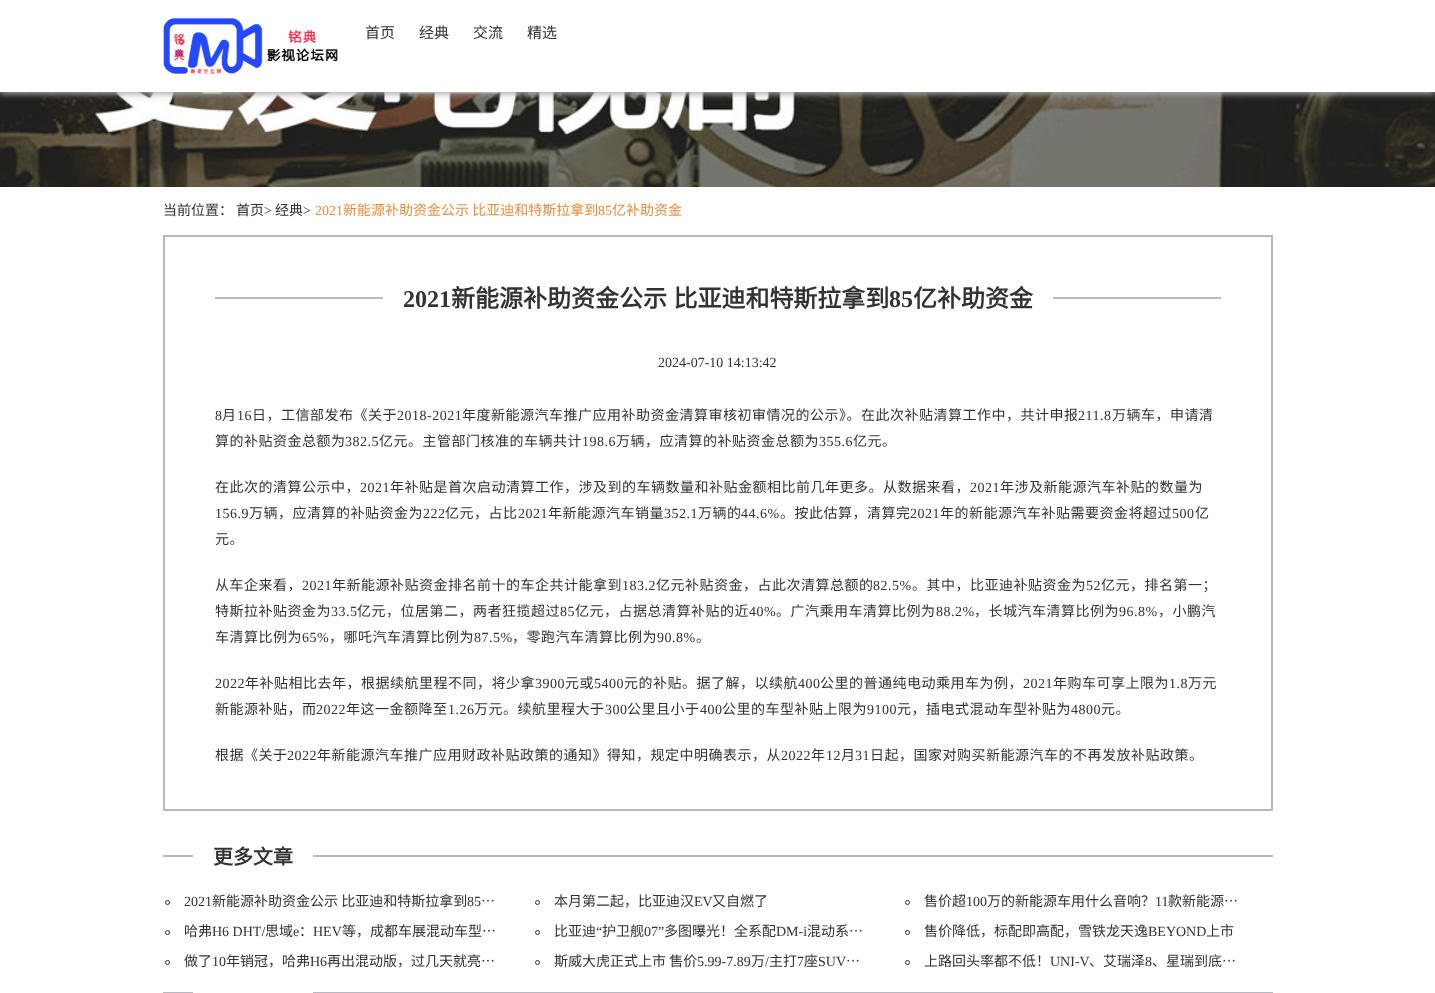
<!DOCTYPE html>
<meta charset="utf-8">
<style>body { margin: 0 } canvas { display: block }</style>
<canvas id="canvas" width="1435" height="993"></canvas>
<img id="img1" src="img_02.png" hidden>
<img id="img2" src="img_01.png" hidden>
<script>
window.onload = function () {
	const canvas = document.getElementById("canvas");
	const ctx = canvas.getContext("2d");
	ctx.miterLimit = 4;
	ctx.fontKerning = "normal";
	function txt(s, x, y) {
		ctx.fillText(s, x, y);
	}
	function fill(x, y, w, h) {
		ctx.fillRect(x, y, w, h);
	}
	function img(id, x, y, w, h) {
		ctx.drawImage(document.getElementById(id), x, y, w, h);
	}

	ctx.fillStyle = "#FFFFFF";
	fill(0, 0, 1435, 993);
	img("img1", 0, 92, 1435, 95);
	ctx.fillStyle = "#AAAAAA";
	ctx.filter = "blur(3px)";
	ctx.beginPath();
	ctx.rect(0, 2, 1435, 92);
	ctx.fill();
	ctx.filter = "none";
	ctx.fillStyle = "#FFFFFF";
	fill(0, 0, 1435, 92);
	img("img2", 163, 18, 175, 56);
	ctx.strokeStyle = "#B4BBC1";
	ctx.lineWidth = 2;
	ctx.strokeRect(164, 236, 1108, 574);
	ctx.fillStyle = "#B4BBC1";
	fill(215, 297, 1006, 2);
	ctx.fillStyle = "#FFFFFF";
	fill(383, 297, 670, 2);
	ctx.fillStyle = "#B4BBC1";
	fill(163, 855, 1110, 2);
	ctx.fillStyle = "#FFFFFF";
	fill(193, 855, 120, 2);
	ctx.beginPath();
	ctx.arc(167.5, 902.5, 2, 0, Math.PI * 2);
	ctx.strokeStyle = "#333333";
	ctx.lineWidth = 1;
	ctx.stroke();
	ctx.beginPath();
	ctx.arc(537.5, 902.5, 2, 0, Math.PI * 2);
	ctx.stroke();
	ctx.beginPath();
	ctx.arc(907.5, 902.5, 2, 0, Math.PI * 2);
	ctx.stroke();
	ctx.beginPath();
	ctx.arc(167.5, 932.5, 2, 0, Math.PI * 2);
	ctx.stroke();
	ctx.beginPath();
	ctx.arc(537.5, 932.5, 2, 0, Math.PI * 2);
	ctx.stroke();
	ctx.beginPath();
	ctx.arc(907.5, 932.5, 2, 0, Math.PI * 2);
	ctx.stroke();
	ctx.beginPath();
	ctx.arc(167.5, 962.5, 2, 0, Math.PI * 2);
	ctx.stroke();
	ctx.beginPath();
	ctx.arc(537.5, 962.5, 2, 0, Math.PI * 2);
	ctx.stroke();
	ctx.beginPath();
	ctx.arc(907.5, 962.5, 2, 0, Math.PI * 2);
	ctx.stroke();
	ctx.fillStyle = "#B4BBC1";
	fill(163, 992, 1110, 1);
	ctx.fillStyle = "#FFFFFF";
	fill(193, 992, 120, 1);
	ctx.font = "15px Noto Sans CJK SC";
	ctx.fillStyle = "#333333";
	txt("首页", 365, 38);
	txt("经典", 419, 38);
	txt("交流", 473, 38);
	txt("精选", 527, 38);
	ctx.font = "14px Noto Sans CJK SC";
	txt("当前位置：", 163, 215);
	txt("首页", 236, 215);
	ctx.font = "14px Liberation Serif";
	txt(">", 264, 215);
	ctx.font = "14px Noto Sans CJK SC";
	txt("经典", 275, 215);
	ctx.font = "14px Liberation Serif";
	txt(">", 303, 215);
	ctx.fillStyle = "#EE8C3E";
	txt("2021", 315, 215);
	ctx.font = "14px Noto Sans CJK SC";
	txt("新能源补助资金公示 比亚迪和特斯拉拿到", 343, 215);
	ctx.font = "14px Liberation Serif";
	txt("85", 598, 215);
	ctx.font = "14px Noto Sans CJK SC";
	txt("亿补助资金", 612, 215);
	ctx.font = "bold 24px Liberation Serif";
	ctx.fillStyle = "#333333";
	txt("2021", 403, 307);
	ctx.wordSpacing = "1px";
	ctx.font = "bold 24px Noto Sans CJK SC";
	txt("新能源补助资金公示 比亚迪和特斯拉拿到", 451, 307);
	ctx.wordSpacing = "0px";
	ctx.font = "bold 24px Liberation Serif";
	txt("85", 889, 307);
	ctx.font = "bold 24px Noto Sans CJK SC";
	txt("亿补助资金", 913, 307);
	ctx.font = "14px Liberation Serif";
	txt("2024-07-10 14:13:42", 658, 367);
	ctx.letterSpacing = "0.5px";
	txt("8", 215, 420);
	ctx.font = "14px Noto Sans CJK SC";
	txt("月", 222, 420);
	ctx.font = "14px Liberation Serif";
	txt("16", 237, 420);
	ctx.font = "14px Noto Sans CJK SC";
	txt("日，工信部发布《关于", 252, 420);
	ctx.font = "14px Liberation Serif";
	txt("2018-2021", 397, 420);
	ctx.font = "14px Noto Sans CJK SC";
	txt("年度新能源汽车推广应用补助资金清算审核初审情况的公示》。在此次补贴清算工作中，共计申报", 462, 420);
	ctx.font = "14px Liberation Serif";
	txt("211.8", 1078, 420);
	ctx.font = "14px Noto Sans CJK SC";
	txt("万辆车，申请清", 1112, 420);
	txt("算的补贴资金总额为", 215, 446);
	ctx.font = "14px Liberation Serif";
	txt("382.5", 345, 446);
	ctx.font = "14px Noto Sans CJK SC";
	txt("亿元。主管部门核准的车辆共计", 379, 446);
	ctx.font = "14px Liberation Serif";
	txt("198.6", 582, 446);
	ctx.font = "14px Noto Sans CJK SC";
	txt("万辆，应清算的补贴资金总额为", 616, 446);
	ctx.font = "14px Liberation Serif";
	txt("355.6", 819, 446);
	ctx.font = "14px Noto Sans CJK SC";
	txt("亿元。", 853, 446);
	txt("在此次的清算公示中，", 215, 492);
	ctx.font = "14px Liberation Serif";
	txt("2021", 360, 492);
	ctx.font = "14px Noto Sans CJK SC";
	txt("年补贴是首次启动清算工作，涉及到的车辆数量和补贴金额相比前几年更多。从数据来看，", 390, 492);
	ctx.font = "14px Liberation Serif";
	txt("2021", 970, 492);
	ctx.font = "14px Noto Sans CJK SC";
	txt("年涉及新能源汽车补贴的数量为", 1000, 492);
	ctx.font = "14px Liberation Serif";
	txt("156.9", 215, 518);
	ctx.font = "14px Noto Sans CJK SC";
	txt("万辆，应清算的补贴资金为", 249, 518);
	ctx.font = "14px Liberation Serif";
	txt("222", 423, 518);
	ctx.font = "14px Noto Sans CJK SC";
	txt("亿元，占比", 445, 518);
	ctx.font = "14px Liberation Serif";
	txt("2021", 518, 518);
	ctx.font = "14px Noto Sans CJK SC";
	txt("年新能源汽车销量", 548, 518);
	ctx.font = "14px Liberation Serif";
	txt("352.1", 664, 518);
	ctx.font = "14px Noto Sans CJK SC";
	txt("万辆的", 698, 518);
	ctx.font = "14px Liberation Serif";
	txt("44.6%", 741, 518);
	ctx.font = "14px Noto Sans CJK SC";
	txt("。按此估算，清算完", 780, 518);
	ctx.font = "14px Liberation Serif";
	txt("2021", 910, 518);
	ctx.font = "14px Noto Sans CJK SC";
	txt("年的新能源汽车补贴需要资金将超过", 940, 518);
	ctx.font = "14px Liberation Serif";
	txt("500", 1172, 518);
	ctx.font = "14px Noto Sans CJK SC";
	txt("亿", 1195, 518);
	txt("元。", 215, 544);
	txt("从车企来看，", 215, 590);
	ctx.font = "14px Liberation Serif";
	txt("2021", 302, 590);
	ctx.font = "14px Noto Sans CJK SC";
	txt("年新能源补贴资金排名前十的车企共计能拿到", 332, 590);
	ctx.font = "14px Liberation Serif";
	txt("183.2", 622, 590);
	ctx.font = "14px Noto Sans CJK SC";
	txt("亿元补贴资金，占此次清算总额的", 656, 590);
	ctx.font = "14px Liberation Serif";
	txt("82.5%", 873, 590);
	ctx.font = "14px Noto Sans CJK SC";
	txt("。其中，比亚迪补贴资金为", 912, 590);
	ctx.font = "14px Liberation Serif";
	txt("52", 1086, 590);
	ctx.font = "14px Noto Sans CJK SC";
	txt("亿元，排名第一；", 1101, 590);
	txt("特斯拉补贴资金为", 215, 616);
	ctx.font = "14px Liberation Serif";
	txt("33.5", 331, 616);
	ctx.font = "14px Noto Sans CJK SC";
	txt("亿元，位居第二，两者狂揽超过", 357, 616);
	ctx.font = "14px Liberation Serif";
	txt("85", 560, 616);
	ctx.font = "14px Noto Sans CJK SC";
	txt("亿元，占据总清算补贴的近", 575, 616);
	ctx.font = "14px Liberation Serif";
	txt("40%", 749, 616);
	ctx.font = "14px Noto Sans CJK SC";
	txt("。广汽乘用车清算比例为", 776, 616);
	ctx.font = "14px Liberation Serif";
	txt("88.2%", 936, 616);
	ctx.font = "14px Noto Sans CJK SC";
	txt("，长城汽车清算比例为", 974, 616);
	ctx.font = "14px Liberation Serif";
	txt("96.8%", 1119, 616);
	ctx.font = "14px Noto Sans CJK SC";
	txt("，小鹏汽", 1158, 616);
	txt("车清算比例为", 215, 642);
	ctx.font = "14px Liberation Serif";
	txt("65%", 302, 642);
	ctx.font = "14px Noto Sans CJK SC";
	txt("，哪吒汽车清算比例为", 329, 642);
	ctx.font = "14px Liberation Serif";
	txt("87.5%", 474, 642);
	ctx.font = "14px Noto Sans CJK SC";
	txt("，零跑汽车清算比例为", 512, 642);
	ctx.font = "14px Liberation Serif";
	txt("90.8%", 657, 642);
	ctx.font = "14px Noto Sans CJK SC";
	txt("。", 696, 642);
	ctx.font = "14px Liberation Serif";
	txt("2022", 215, 688);
	ctx.font = "14px Noto Sans CJK SC";
	txt("年补贴相比去年，根据续航里程不同，将少拿", 245, 688);
	ctx.font = "14px Liberation Serif";
	txt("3900", 535, 688);
	ctx.font = "14px Noto Sans CJK SC";
	txt("元或", 565, 688);
	ctx.font = "14px Liberation Serif";
	txt("5400", 594, 688);
	ctx.font = "14px Noto Sans CJK SC";
	txt("元的补贴。据了解，以续航", 624, 688);
	ctx.font = "14px Liberation Serif";
	txt("400", 798, 688);
	ctx.font = "14px Noto Sans CJK SC";
	txt("公里的普通纯电动乘用车为例，", 820, 688);
	ctx.font = "14px Liberation Serif";
	txt("2021", 1023, 688);
	ctx.font = "14px Noto Sans CJK SC";
	txt("年购车可享上限为", 1053, 688);
	ctx.font = "14px Liberation Serif";
	txt("1.8", 1169, 688);
	ctx.font = "14px Noto Sans CJK SC";
	txt("万元", 1188, 688);
	txt("新能源补贴，而", 215, 714);
	ctx.font = "14px Liberation Serif";
	txt("2022", 316, 714);
	ctx.font = "14px Noto Sans CJK SC";
	txt("年这一金额降至", 346, 714);
	ctx.font = "14px Liberation Serif";
	txt("1.26", 448, 714);
	ctx.font = "14px Noto Sans CJK SC";
	txt("万元。续航里程大于", 474, 714);
	ctx.font = "14px Liberation Serif";
	txt("300", 605, 714);
	ctx.font = "14px Noto Sans CJK SC";
	txt("公里且小于", 627, 714);
	ctx.font = "14px Liberation Serif";
	txt("400", 700, 714);
	ctx.font = "14px Noto Sans CJK SC";
	txt("公里的车型补贴上限为", 722, 714);
	ctx.font = "14px Liberation Serif";
	txt("9100", 867, 714);
	ctx.font = "14px Noto Sans CJK SC";
	txt("元，插电式混动车型补贴为", 897, 714);
	ctx.font = "14px Liberation Serif";
	txt("4800", 1071, 714);
	ctx.font = "14px Noto Sans CJK SC";
	txt("元。", 1101, 714);
	txt("根据《关于", 215, 760);
	ctx.font = "14px Liberation Serif";
	txt("2022", 287, 760);
	ctx.font = "14px Noto Sans CJK SC";
	txt("年新能源汽车推广应用财政补贴政策的通知》得知，规定中明确表示，从", 317, 760);
	ctx.font = "14px Liberation Serif";
	txt("2022", 781, 760);
	ctx.font = "14px Noto Sans CJK SC";
	txt("年", 811, 760);
	ctx.font = "14px Liberation Serif";
	txt("12", 826, 760);
	ctx.font = "14px Noto Sans CJK SC";
	txt("月", 841, 760);
	ctx.font = "14px Liberation Serif";
	txt("31", 855, 760);
	ctx.font = "14px Noto Sans CJK SC";
	txt("日起，国家对购买新能源汽车的不再发放补贴政策。", 870, 760);
	ctx.letterSpacing = "0px";
	ctx.font = "bold 20px Noto Sans CJK SC";
	txt("更多文章", 213, 864);
	ctx.font = "14px Liberation Serif";
	txt("2021", 184, 906);
	ctx.font = "14px Noto Sans CJK SC";
	txt("新能源补助资金公示 比亚迪和特斯拉拿到", 212, 906);
	ctx.font = "14px Liberation Serif";
	txt("85", 467, 906);
	ctx.font = "14px Noto Sans CJK SC";
	txt("…", 481, 906);
	txt("本月第二起，比亚迪汉", 554, 906);
	ctx.font = "14px Liberation Serif";
	txt("EV", 694, 906);
	ctx.font = "14px Noto Sans CJK SC";
	txt("又自燃了", 712, 906);
	txt("售价超", 924, 906);
	ctx.font = "14px Liberation Serif";
	txt("100", 966, 906);
	ctx.font = "14px Noto Sans CJK SC";
	txt("万的新能源车用什么音响？", 987, 906);
	ctx.font = "14px Liberation Serif";
	txt("11", 1155, 906);
	ctx.font = "14px Noto Sans CJK SC";
	txt("款新能源…", 1168, 906);
	txt("哈弗", 184, 936);
	ctx.font = "14px Liberation Serif";
	txt("H6 DHT/", 212, 936);
	ctx.font = "14px Noto Sans CJK SC";
	txt("思域", 265, 936);
	ctx.font = "14px Liberation Serif";
	txt("e", 293, 936);
	ctx.font = "14px Noto Sans CJK SC";
	txt("：", 299, 936);
	ctx.font = "14px Liberation Serif";
	txt("HEV", 313, 936);
	ctx.font = "14px Noto Sans CJK SC";
	txt("等，成都车展混动车型…", 342, 936);
	txt("比亚迪", 554, 936);
	ctx.font = "14px Liberation Serif";
	txt("“", 596, 936);
	ctx.font = "14px Noto Sans CJK SC";
	txt("护卫舰", 602, 936);
	ctx.font = "14px Liberation Serif";
	txt("07”", 644, 936);
	ctx.font = "14px Noto Sans CJK SC";
	txt("多图曝光！全系配", 664, 936);
	ctx.font = "14px Liberation Serif";
	txt("DM-i", 776, 936);
	ctx.font = "14px Noto Sans CJK SC";
	txt("混动系…", 807, 936);
	txt("售价降低，标配即高配，雪铁龙天逸", 924, 936);
	ctx.font = "14px Liberation Serif";
	txt("BEYOND", 1148, 936);
	ctx.font = "14px Noto Sans CJK SC";
	txt("上市", 1206, 936);
	txt("做了", 184, 966);
	ctx.font = "14px Liberation Serif";
	txt("10", 212, 966);
	ctx.font = "14px Noto Sans CJK SC";
	txt("年销冠，哈弗", 226, 966);
	ctx.font = "14px Liberation Serif";
	txt("H6", 310, 966);
	ctx.font = "14px Noto Sans CJK SC";
	txt("再出混动版，过几天就亮…", 327, 966);
	txt("斯威大虎正式上市 售价", 554, 966);
	ctx.font = "14px Liberation Serif";
	txt("5.99-7.89", 697, 966);
	ctx.font = "14px Noto Sans CJK SC";
	txt("万", 751, 966);
	ctx.font = "14px Liberation Serif";
	txt("/", 765, 966);
	ctx.font = "14px Noto Sans CJK SC";
	txt("主打", 769, 966);
	ctx.font = "14px Liberation Serif";
	txt("7", 797, 966);
	ctx.font = "14px Noto Sans CJK SC";
	txt("座", 804, 966);
	ctx.font = "14px Liberation Serif";
	txt("SUV", 818, 966);
	ctx.font = "14px Noto Sans CJK SC";
	txt("…", 846, 966);
	txt("上路回头率都不低！", 924, 966);
	ctx.font = "14px Liberation Serif";
	txt("UNI-V", 1050, 966);
	ctx.font = "14px Noto Sans CJK SC";
	txt("、艾瑞泽", 1089, 966);
	ctx.font = "14px Liberation Serif";
	txt("8", 1145, 966);
	ctx.font = "14px Noto Sans CJK SC";
	txt("、星瑞到底…", 1152, 966);
};
</script>
